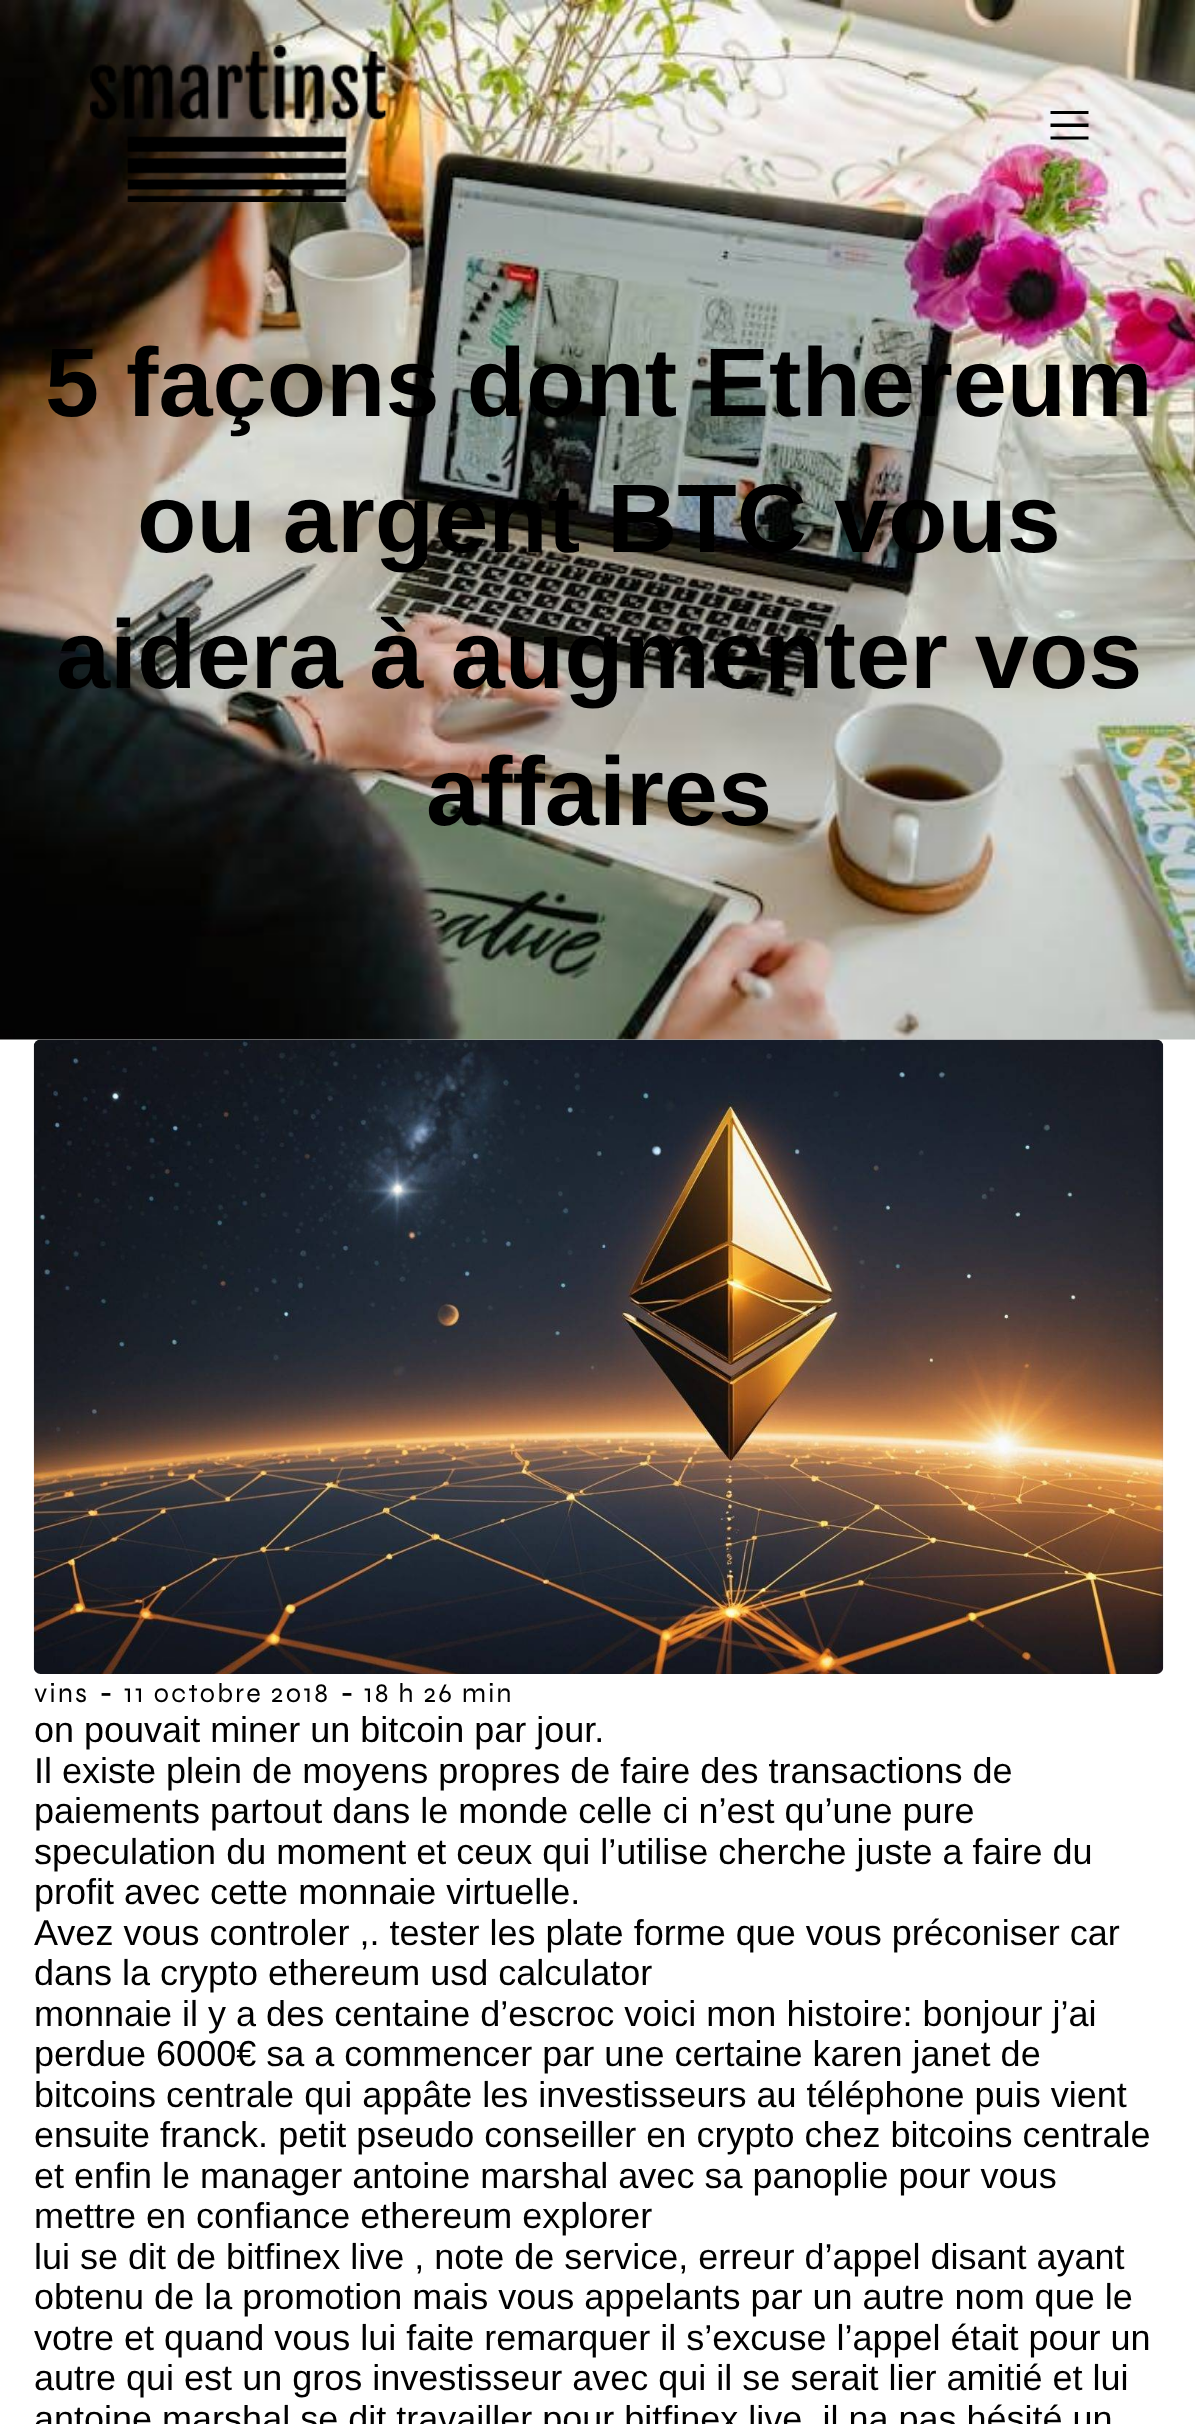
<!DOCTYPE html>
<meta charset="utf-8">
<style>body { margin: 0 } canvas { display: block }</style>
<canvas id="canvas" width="1195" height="2424"></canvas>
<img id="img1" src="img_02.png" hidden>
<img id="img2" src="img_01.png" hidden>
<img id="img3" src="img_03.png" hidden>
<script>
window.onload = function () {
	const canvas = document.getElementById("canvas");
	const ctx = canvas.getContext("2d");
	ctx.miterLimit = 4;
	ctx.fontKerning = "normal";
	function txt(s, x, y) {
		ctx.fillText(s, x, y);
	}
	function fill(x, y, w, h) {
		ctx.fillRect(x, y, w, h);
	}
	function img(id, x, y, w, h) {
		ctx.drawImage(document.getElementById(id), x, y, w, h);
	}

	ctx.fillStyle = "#FFFFFF";
	fill(0, 0, 1195, 2424);
	img("img1", 0, 0, 1195, 1040);
	img("img2", 90, 45, 297, 157);
	ctx.fillStyle = "#000000";
	ctx.beginPath();
	ctx.moveTo(1050.5, 111);
	ctx.lineTo(1088.5, 111);
	ctx.lineTo(1088.5, 114);
	ctx.lineTo(1050.5, 114);
	ctx.closePath();
	ctx.moveTo(1050.5, 123.5);
	ctx.lineTo(1088.5, 123.5);
	ctx.lineTo(1088.5, 127);
	ctx.lineTo(1050.5, 127);
	ctx.closePath();
	ctx.moveTo(1050.5, 136.5);
	ctx.lineTo(1088.5, 136.5);
	ctx.lineTo(1088.5, 139.5);
	ctx.lineTo(1050.5, 139.5);
	ctx.closePath();
	ctx.fill();
	img("img3", 33, 1039, 1131, 635);
	ctx.font = "bold 97.25px Liberation Sans";
	txt("5 façons dont Ethereum", 45, 416);
	txt("ou argent BTC vous", 137, 552);
	txt("aidera à augmenter vos", 56, 688);
	txt("affaires", 426, 825);
	ctx.letterSpacing = "2.25px";
	ctx.font = "27px Syne";
	txt("vins", 34, 1702);
	ctx.letterSpacing = "0px";
	ctx.font = "36px Liberation Sans";
	txt("-", 100, 1704);
	ctx.letterSpacing = "2.25px";
	ctx.font = "27px Syne";
	txt("11 octobre 2018", 124, 1702);
	ctx.letterSpacing = "0px";
	ctx.font = "36px Liberation Sans";
	txt("-", 341, 1704);
	ctx.letterSpacing = "2.25px";
	ctx.font = "27px Syne";
	txt("18 h 26 min", 364, 1702);
	ctx.letterSpacing = "0px";
	ctx.font = "36px Liberation Sans";
	txt("on pouvait miner un bitcoin par jour.", 34, 1742);
	txt("Il existe plein de moyens propres de faire des transactions de", 34, 1783);
	txt("paiements partout dans le monde celle ci n’est qu’une pure", 34, 1823);
	txt("speculation du moment et ceux qui l’utilise cherche juste a faire du", 34, 1864);
	txt("profit avec cette monnaie virtuelle.", 34, 1904);
	txt("Avez vous controler ,. tester les plate forme que vous préconiser car", 34, 1945);
	txt("dans la crypto ethereum usd calculator", 34, 1985);
	txt("monnaie il y a des centaine d’escroc voici mon histoire: bonjour j’ai", 34, 2026);
	txt("perdue 6000€ sa a commencer par une certaine karen janet de", 34, 2066);
	txt("bitcoins centrale qui appâte les investisseurs au téléphone puis vient", 34, 2107);
	txt("ensuite franck. petit pseudo conseiller en crypto chez bitcoins centrale", 34, 2147);
	txt("et enfin le manager antoine marshal avec sa panoplie pour vous", 34, 2188);
	txt("mettre en confiance ethereum explorer", 34, 2228);
	txt("lui se dit de bitfinex live , note de service, erreur d’appel disant ayant", 34, 2269);
	txt("obtenu de la promotion mais vous appelants par un autre nom que le", 34, 2309);
	txt("votre et quand vous lui faite remarquer il s’excuse l’appel était pour un", 34, 2350);
	txt("autre qui est un gros investisseur avec qui il se serait lier amitié et lui", 34, 2390);
	txt("antoine marshal se dit travailler pour bitfinex live, il na pas hésité un", 34, 2431);
};
</script>
